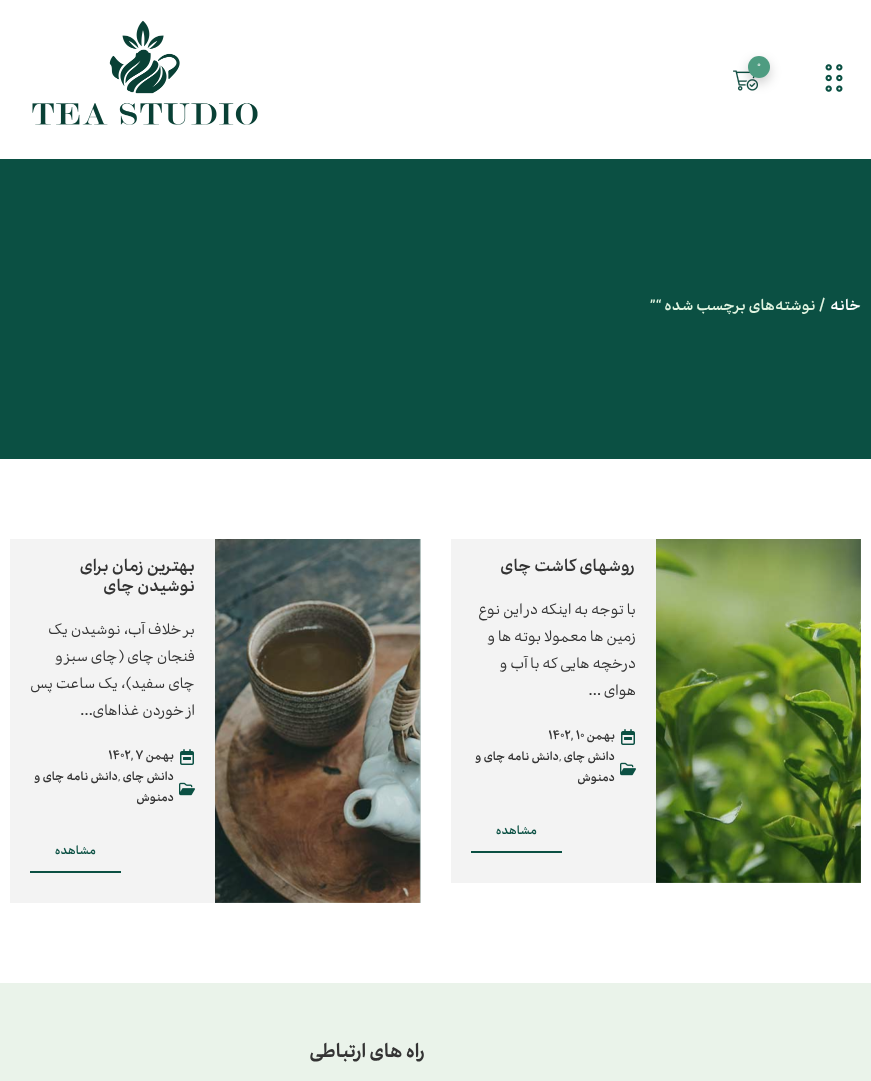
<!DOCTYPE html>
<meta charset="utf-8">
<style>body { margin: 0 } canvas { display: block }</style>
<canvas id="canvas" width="871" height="1081"></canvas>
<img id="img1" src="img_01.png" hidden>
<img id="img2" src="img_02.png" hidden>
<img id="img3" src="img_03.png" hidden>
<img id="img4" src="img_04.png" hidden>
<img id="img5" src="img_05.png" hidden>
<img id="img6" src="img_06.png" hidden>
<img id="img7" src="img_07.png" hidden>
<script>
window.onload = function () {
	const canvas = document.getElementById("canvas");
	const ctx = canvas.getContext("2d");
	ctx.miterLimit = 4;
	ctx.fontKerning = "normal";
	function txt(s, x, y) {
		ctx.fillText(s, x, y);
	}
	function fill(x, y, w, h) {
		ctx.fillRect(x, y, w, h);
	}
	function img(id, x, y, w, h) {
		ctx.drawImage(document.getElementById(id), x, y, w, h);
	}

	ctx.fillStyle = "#FFFFFF";
	fill(0, 0, 871, 1081);
	img("img1", 825, 64, 18, 28);
	img("img2", 733, 70, 25, 21);
	ctx.fillStyle = "rgba(0, 0, 0, 0.2)";
	ctx.filter = "blur(6px)";
	ctx.beginPath();
	ctx.roundRect(748, 61, 22, 22, 11);
	ctx.fill();
	ctx.filter = "none";
	ctx.fillStyle = "#4E9C81";
	ctx.beginPath();
	ctx.arc(759, 67, 11, 0, Math.PI * 2);
	ctx.fill();
	img("img3", 32, 20, 226, 105);
	ctx.fillStyle = "#0B5043";
	fill(0, 159, 871, 300);
	ctx.fillStyle = "#F3F3F3";
	fill(451, 539, 410, 344);
	img("img4", 656, 539, 205, 344);
	img("img5", 621, 729, 14, 16);
	img("img6", 620, 762, 16, 14);
	ctx.fillStyle = "#0B5043";
	fill(471, 851, 91, 2);
	ctx.fillStyle = "#F3F3F3";
	fill(10, 539, 205, 364);
	ctx.fillStyle = "#C5D2D0";
	fill(215, 539, 206, 364);
	img("img7", 215, 539, 206, 364);
	img("img5", 180, 749, 14, 16);
	img("img6", 179, 782, 16, 14);
	ctx.fillStyle = "#0B5043";
	fill(30, 871, 91, 2);
	ctx.fillStyle = "#EAF3EA";
	fill(0, 983, 871, 98);
	ctx.font = "12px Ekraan";
	ctx.fillStyle = "#FFFFFF";
	txt("0", 757, 68);
	ctx.direction = "rtl";
	ctx.font = "600 18px Ekraan";
	txt("خانه", 861, 310);
	ctx.fillStyle = "#E0F3E0";
	txt("/ نوشته‌های برچسب شده “”", 826, 310);
	ctx.font = "600 20px Ekraan";
	ctx.fillStyle = "#333333";
	txt("روشهای کاشت چای", 636, 571);
	ctx.font = "18px Ekraan";
	txt("با توجه به اینکه در این نوع", 636, 614);
	txt("زمین ها معمولا بوته ها و", 636, 641);
	txt("درخچه هایی که با آب و", 636, 668);
	txt("هوای ...", 636, 695);
	ctx.font = "600 14px Ekraan";
	txt("بهمن", 615, 739);
	ctx.direction = "ltr";
	txt("1402, 10", 548, 739);
	ctx.direction = "rtl";
	txt("دانش چای", 615, 760);
	ctx.direction = "ltr";
	ctx.font = "14px Ekraan";
	txt(",", 559, 760);
	ctx.direction = "rtl";
	ctx.font = "600 14px Ekraan";
	txt("دانش نامه چای و", 559, 760);
	txt("دمنوش", 615, 781);
	ctx.fillStyle = "#0B5043";
	txt("مشاهده", 537, 834);
	ctx.font = "600 20px Ekraan";
	ctx.fillStyle = "#333333";
	txt("بهترین زمان برای", 195, 571);
	txt("نوشیدن چای", 195, 591);
	ctx.font = "18px Ekraan";
	txt("بر خلاف آب، نوشیدن یک", 195, 634);
	txt("فنجان چای (چای سبز و", 195, 661);
	txt("چای سفيد)، یک ساعت پس", 195, 688);
	txt("از خوردن غذاهای...", 195, 715);
	ctx.font = "600 14px Ekraan";
	txt("بهمن", 174, 759);
	ctx.direction = "ltr";
	txt("1402, 7", 108, 759);
	ctx.direction = "rtl";
	txt("دانش چای", 174, 780);
	ctx.direction = "ltr";
	ctx.font = "14px Ekraan";
	txt(",", 118, 780);
	ctx.direction = "rtl";
	ctx.font = "600 14px Ekraan";
	txt("دانش نامه چای و", 118, 780);
	txt("دمنوش", 174, 801);
	ctx.fillStyle = "#0B5043";
	txt("مشاهده", 96, 854);
	ctx.font = "bold 22px Ekraan";
	ctx.fillStyle = "#333333";
	txt("راه های ارتباطی", 425, 1057);
};
</script>
